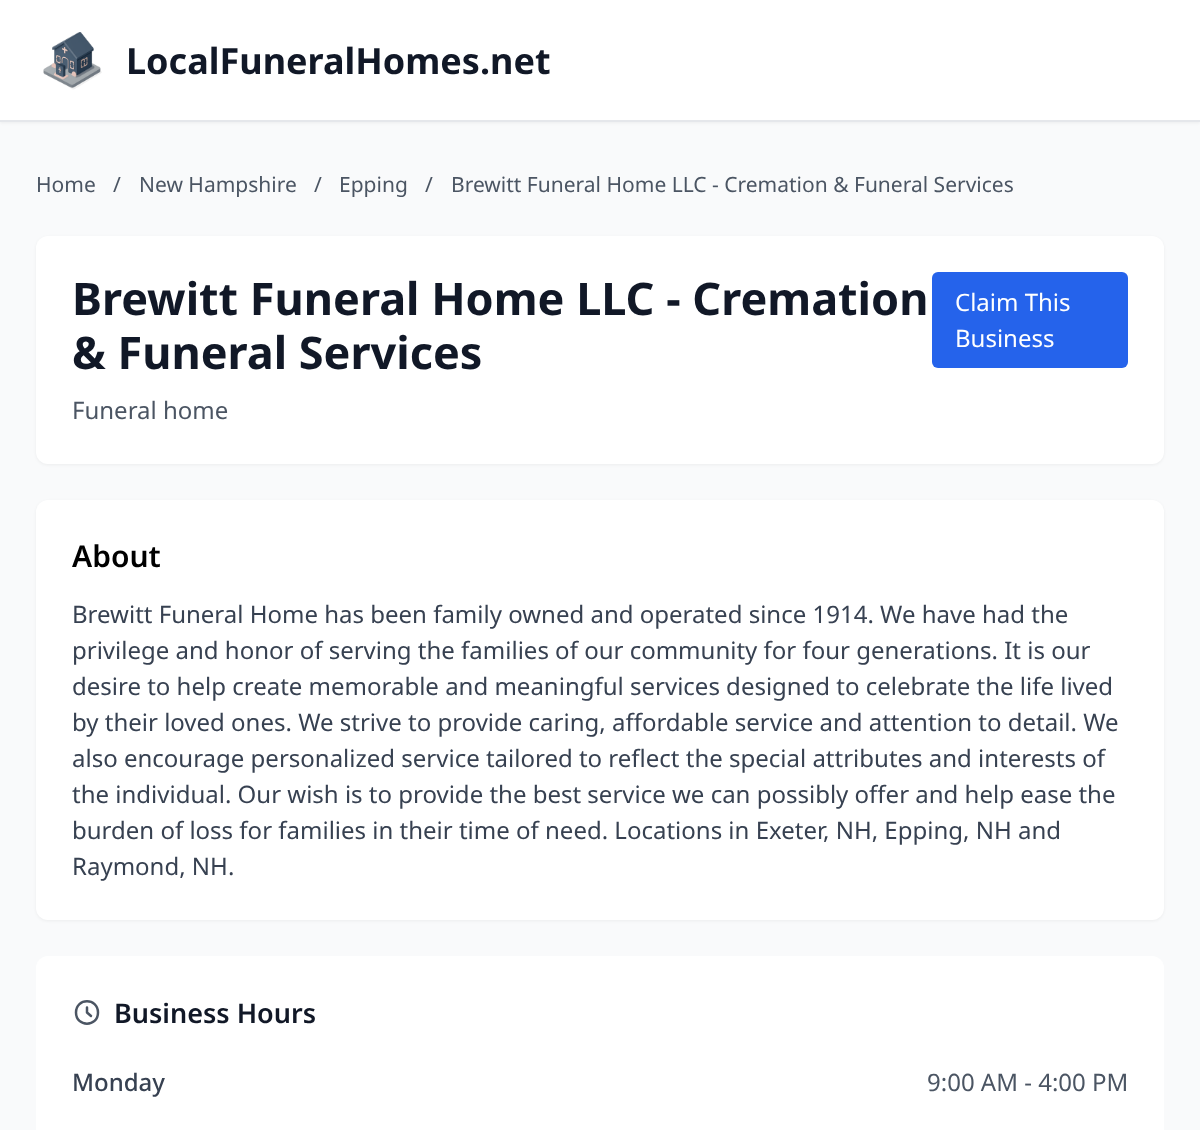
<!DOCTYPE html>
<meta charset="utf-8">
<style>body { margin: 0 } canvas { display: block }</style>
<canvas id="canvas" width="1200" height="1130"></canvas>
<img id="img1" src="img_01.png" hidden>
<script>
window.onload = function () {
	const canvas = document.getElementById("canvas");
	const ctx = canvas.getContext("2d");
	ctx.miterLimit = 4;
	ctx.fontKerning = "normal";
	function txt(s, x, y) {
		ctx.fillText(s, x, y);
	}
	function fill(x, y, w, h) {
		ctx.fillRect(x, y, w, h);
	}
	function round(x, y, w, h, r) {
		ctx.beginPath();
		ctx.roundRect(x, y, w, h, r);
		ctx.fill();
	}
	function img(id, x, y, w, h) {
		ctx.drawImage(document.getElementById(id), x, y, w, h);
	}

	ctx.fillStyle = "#F9FAFB";
	fill(0, 0, 1200, 1130);
	ctx.fillStyle = "rgba(0, 0, 0, 0.05)";
	ctx.filter = "blur(1.5px)";
	ctx.beginPath();
	ctx.rect(0, 2, 1200, 121);
	ctx.fill();
	ctx.filter = "none";
	ctx.fillStyle = "#FFFFFF";
	fill(0, 0, 1200, 120);
	ctx.fillStyle = "#E5E7EB";
	fill(0, 120, 1200, 2);
	img("img1", 43, 32, 59, 58);
	ctx.fillStyle = "rgba(0, 0, 0, 0.05)";
	ctx.filter = "blur(1.5px)";
	ctx.beginPath();
	ctx.roundRect(36, 237, 1128, 228, 12);
	ctx.fill();
	ctx.filter = "none";
	ctx.fillStyle = "#FFFFFF";
	round(36, 236, 1128, 228, 12);
	ctx.fillStyle = "#2563EB";
	round(932, 272, 196, 96, 6);
	ctx.fillStyle = "rgba(0, 0, 0, 0.05)";
	ctx.filter = "blur(1.5px)";
	ctx.beginPath();
	ctx.roundRect(36, 501, 1128, 420, 12);
	ctx.fill();
	ctx.filter = "none";
	ctx.fillStyle = "#FFFFFF";
	round(36, 500, 1128, 420, 12);
	round(36, 956, 1128, 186, 12);
	ctx.beginPath();
	ctx.moveTo(87, 1007.5);
	ctx.lineTo(87, 1012.5);
	ctx.lineTo(91, 1016);
	ctx.moveTo(98, 1012.5);
	ctx.bezierCurveTo(98, 1027.5, 76, 1027.5, 76, 1012.5);
	ctx.bezierCurveTo(76, 997.5, 98, 997.5, 98, 1012.5);
	ctx.closePath();
	ctx.strokeStyle = "#4B5563";
	ctx.lineWidth = 2.5;
	ctx.lineCap = "round";
	ctx.lineJoin = "round";
	ctx.stroke();
	ctx.font = "bold 36px Noto Sans";
	ctx.fillStyle = "#111827";
	txt("LocalFuneralHomes.net", 126, 74);
	ctx.font = "21px Noto Sans";
	ctx.fillStyle = "#4B5563";
	txt("Home", 36, 192);
	txt("/", 113, 192);
	txt("New Hampshire", 139, 192);
	txt("/", 314, 192);
	txt("Epping", 339, 192);
	txt("/", 425, 192);
	txt("Brewitt Funeral Home LLC - Cremation & Funeral Services", 451, 192);
	ctx.font = "bold 45px Noto Sans";
	ctx.fillStyle = "#111827";
	txt("Brewitt Funeral Home LLC - Cremation", 72, 315);
	txt("& Funeral Services", 72, 369);
	ctx.font = "24px Noto Sans";
	ctx.fillStyle = "#4B5563";
	txt("Funeral home", 72, 419);
	ctx.fillStyle = "#FFFFFF";
	txt("Claim This", 955, 311);
	txt("Business", 955, 347);
	ctx.font = "600 30px Noto Sans";
	ctx.fillStyle = "#000000";
	txt("About", 72, 567);
	ctx.font = "24px Noto Sans";
	ctx.fillStyle = "#374151";
	txt("Brewitt Funeral Home has been family owned and operated since 1914. We have had the", 72, 623);
	txt("privilege and honor of serving the families of our community for four generations. It is our", 72, 659);
	txt("desire to help create memorable and meaningful services designed to celebrate the life lived", 72, 695);
	txt("by their loved ones. We strive to provide caring, affordable service and attention to detail. We", 72, 731);
	txt("also encourage personalized service tailored to reflect the special attributes and interests of", 72, 767);
	txt("the individual. Our wish is to provide the best service we can possibly offer and help ease the", 72, 803);
	txt("burden of loss for families in their time of need. Locations in Exeter, NH, Epping, NH and", 72, 839);
	txt("Raymond, NH.", 72, 875);
	ctx.font = "600 27px Noto Sans";
	ctx.fillStyle = "#111827";
	txt("Business Hours", 114, 1023);
	ctx.font = "500 24px Noto Sans";
	ctx.fillStyle = "#374151";
	txt("Monday", 72, 1091);
	ctx.font = "24px Noto Sans";
	ctx.fillStyle = "#4B5563";
	txt("9:00 AM - 4:00 PM", 927, 1091);
};
</script>
